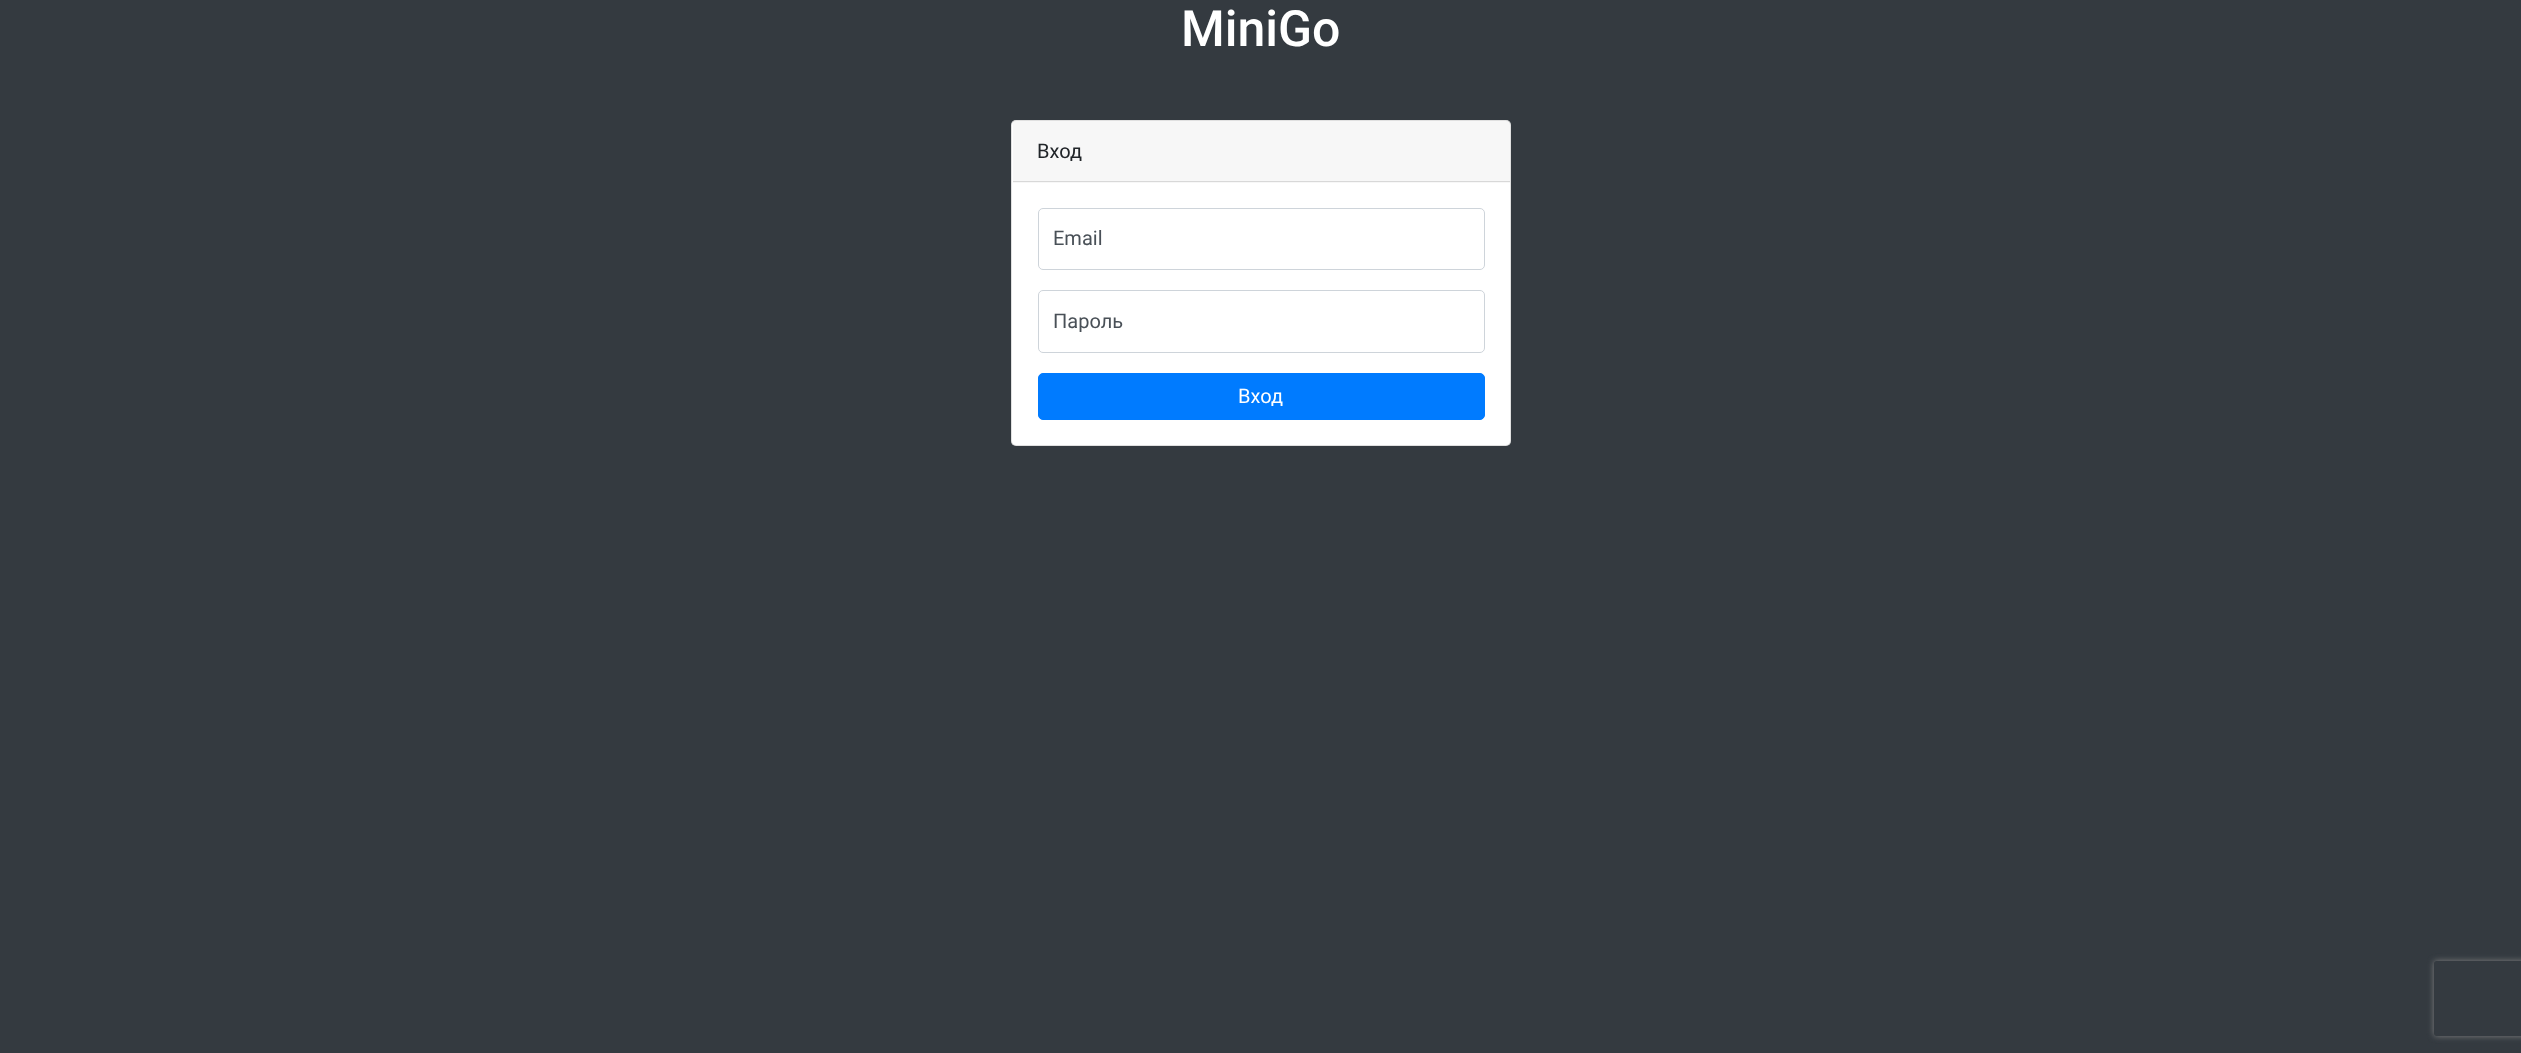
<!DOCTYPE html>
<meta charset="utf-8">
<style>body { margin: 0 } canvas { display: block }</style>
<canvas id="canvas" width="2521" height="1053"></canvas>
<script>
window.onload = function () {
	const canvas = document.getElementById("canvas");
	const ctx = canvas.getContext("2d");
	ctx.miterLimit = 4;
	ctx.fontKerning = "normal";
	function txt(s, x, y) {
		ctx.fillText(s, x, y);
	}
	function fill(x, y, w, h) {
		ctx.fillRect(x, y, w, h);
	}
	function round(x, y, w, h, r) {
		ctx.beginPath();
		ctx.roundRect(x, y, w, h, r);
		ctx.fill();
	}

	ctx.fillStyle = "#343A40";
	fill(0, 0, 2521, 1053);
	ctx.fillStyle = "#FFFFFF";
	round(1011, 120, 500, 326, 5);
	ctx.beginPath();
	ctx.roundRect(1011.5, 120.5, 499, 325, 4.5);
	ctx.strokeStyle = "rgba(0, 0, 0, 0.12)";
	ctx.stroke();
	ctx.fillStyle = "rgba(0, 0, 0, 0.03)";
	fill(1013, 121, 497, 62);
	ctx.fillStyle = "#D8D8D8";
	fill(1013, 181, 497, 1);
	ctx.beginPath();
	ctx.roundRect(1038.5, 208.5, 446, 61, 4.5);
	ctx.strokeStyle = "#CED4DA";
	ctx.stroke();
	ctx.beginPath();
	ctx.roundRect(1038.5, 290.5, 446, 62, 4.5);
	ctx.stroke();
	ctx.fillStyle = "#007BFF";
	ctx.beginPath();
	ctx.roundRect(1038.5, 373.5, 446, 46, 4.5);
	ctx.fill();
	ctx.strokeStyle = "#007BFF";
	ctx.stroke();
	ctx.save();
	ctx.beginPath();
	ctx.moveTo(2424, 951);
	ctx.lineTo(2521, 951);
	ctx.lineTo(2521, 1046);
	ctx.lineTo(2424, 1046);
	ctx.closePath();
	ctx.moveTo(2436.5, 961);
	ctx.lineTo(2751.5, 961);
	ctx.bezierCurveTo(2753, 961, 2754, 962, 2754, 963.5);
	ctx.lineTo(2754, 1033.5);
	ctx.bezierCurveTo(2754, 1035, 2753, 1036, 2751.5, 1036);
	ctx.lineTo(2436.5, 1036);
	ctx.bezierCurveTo(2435, 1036, 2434, 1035, 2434, 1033.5);
	ctx.lineTo(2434, 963.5);
	ctx.bezierCurveTo(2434, 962, 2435, 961, 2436.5, 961);
	ctx.closePath();
	ctx.clip("evenodd");
	ctx.fillStyle = "#808080";
	ctx.filter = "blur(3px)";
	ctx.beginPath();
	ctx.roundRect(2434, 961, 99, 75, 2.5);
	ctx.fill();
	ctx.filter = "none";
	ctx.restore();
	ctx.font = "500 50px Roboto";
	ctx.fillStyle = "#FFFFFF";
	txt("MiniGo", 1181, 46);
	ctx.font = "20px Roboto";
	ctx.fillStyle = "#212529";
	txt("Вход", 1037, 158);
	ctx.fillStyle = "#495057";
	txt("Email", 1053, 245);
	txt("Пароль", 1053, 328);
	ctx.fillStyle = "#FFFFFF";
	txt("Вход", 1238, 403);
};
</script>
